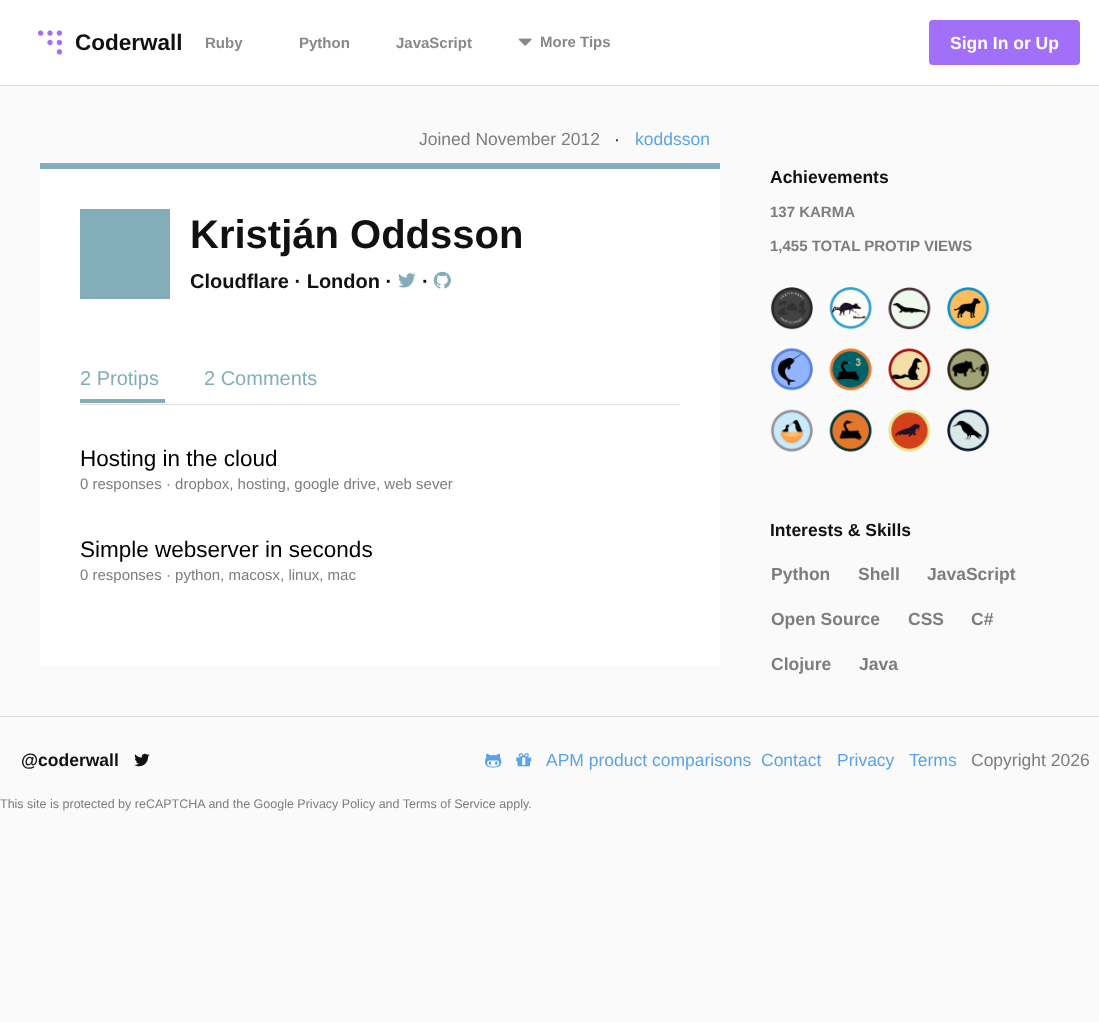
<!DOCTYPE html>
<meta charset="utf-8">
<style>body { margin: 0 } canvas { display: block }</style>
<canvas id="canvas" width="1099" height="1022"></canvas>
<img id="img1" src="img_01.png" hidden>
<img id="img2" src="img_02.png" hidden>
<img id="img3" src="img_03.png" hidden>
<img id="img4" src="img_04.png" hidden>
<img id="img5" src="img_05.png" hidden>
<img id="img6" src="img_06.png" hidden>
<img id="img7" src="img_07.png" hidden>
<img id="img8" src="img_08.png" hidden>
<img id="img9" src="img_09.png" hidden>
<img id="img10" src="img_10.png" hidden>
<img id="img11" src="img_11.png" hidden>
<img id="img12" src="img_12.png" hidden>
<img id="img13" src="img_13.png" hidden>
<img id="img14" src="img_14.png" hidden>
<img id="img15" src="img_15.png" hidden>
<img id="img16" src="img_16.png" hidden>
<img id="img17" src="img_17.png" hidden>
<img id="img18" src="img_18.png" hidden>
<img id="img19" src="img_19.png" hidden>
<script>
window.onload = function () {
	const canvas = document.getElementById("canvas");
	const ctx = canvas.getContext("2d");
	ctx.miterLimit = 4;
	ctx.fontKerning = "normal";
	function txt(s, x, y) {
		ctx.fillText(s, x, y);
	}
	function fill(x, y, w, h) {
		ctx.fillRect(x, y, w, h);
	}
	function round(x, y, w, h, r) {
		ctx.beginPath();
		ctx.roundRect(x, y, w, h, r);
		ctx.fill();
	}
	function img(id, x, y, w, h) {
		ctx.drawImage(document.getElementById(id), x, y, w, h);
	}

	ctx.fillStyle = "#FAFAFA";
	fill(0, 0, 1099, 1022);
	ctx.fillStyle = "#FFFFFF";
	fill(0, 0, 1099, 85);
	ctx.fillStyle = "#DFDFDF";
	fill(0, 85, 1099, 1);
	img("img1", 37, 30, 26, 25);
	img("img2", 518, 38, 14, 8);
	ctx.fillStyle = "#A26FF9";
	round(929, 20, 151, 45, 4);
	ctx.fillStyle = "#FFFFFF";
	fill(40, 169, 680, 497);
	ctx.fillStyle = "#83ADB8";
	fill(40, 163, 680, 6);
	fill(80, 209, 90, 90);
	img("img3", 398, 273, 18, 15);
	img("img4", 433, 271, 18, 18);
	fill(80, 399, 85, 4);
	ctx.fillStyle = "#DFDFDF";
	fill(80, 404, 600, 1);
	img("img5", 770, 287, 43, 43);
	img("img6", 829, 287, 43, 43);
	img("img7", 888, 287, 43, 43);
	img("img8", 947, 287, 43, 43);
	img("img9", 770, 348, 43, 43);
	img("img10", 829, 348, 43, 43);
	img("img11", 888, 348, 43, 43);
	img("img12", 947, 348, 43, 43);
	img("img13", 770, 409, 43, 43);
	img("img14", 829, 409, 43, 43);
	img("img15", 888, 409, 43, 43);
	img("img16", 947, 409, 43, 43);
	ctx.fillStyle = "#DBDBDB";
	fill(0, 716, 1099, 1);
	img("img17", 134, 753, 16, 14);
	img("img18", 485, 753, 17, 15);
	img("img19", 516, 753, 16, 14);
	ctx.font = "bold 22.5px Liberation Sans";
	ctx.fillStyle = "#111111";
	txt("Coderwall", 75, 50);
	ctx.font = "bold 15px Liberation Sans";
	ctx.fillStyle = "#888888";
	txt("Ruby", 205, 48);
	txt("Python", 299, 48);
	txt("JavaScript", 396, 48);
	txt("More Tips", 540, 47);
	ctx.font = "bold 17.5px Liberation Sans";
	ctx.fillStyle = "#FFFFFF";
	txt("Sign In or Up", 950, 49);
	ctx.font = "17.5px Liberation Sans";
	ctx.fillStyle = "#7D7D7D";
	txt("Joined November 2012", 419, 145);
	ctx.fillStyle = "#111111";
	txt("·", 614, 145);
	ctx.fillStyle = "#5AA3E8";
	txt("koddsson", 635, 145);
	ctx.font = "bold 40px Liberation Sans";
	ctx.fillStyle = "#111111";
	txt("Kristján Oddsson", 190, 248);
	ctx.font = "bold 20px Liberation Sans";
	txt("Cloudflare · London ·", 190, 288);
	txt("·", 422, 288);
	ctx.font = "20px Liberation Sans";
	ctx.fillStyle = "#83ADB8";
	txt("2 Protips", 80, 385);
	txt("2 Comments", 204, 385);
	ctx.font = "22.5px Liberation Sans";
	ctx.fillStyle = "#000000";
	txt("Hosting in the cloud", 80, 466);
	ctx.font = "15px Liberation Sans";
	ctx.fillStyle = "#7D7D7D";
	txt("0 responses · dropbox, hosting, google drive, web sever", 80, 489);
	ctx.font = "22.5px Liberation Sans";
	ctx.fillStyle = "#000000";
	txt("Simple webserver in seconds", 80, 557);
	ctx.font = "15px Liberation Sans";
	ctx.fillStyle = "#7D7D7D";
	txt("0 responses · python, macosx, linux, mac", 80, 580);
	ctx.font = "bold 17.5px Liberation Sans";
	ctx.fillStyle = "#111111";
	txt("Achievements", 770, 183);
	ctx.font = "bold 15px Liberation Sans";
	ctx.fillStyle = "#7D7D7D";
	txt("137 KARMA", 770, 217);
	txt("1,455 TOTAL PROTIP VIEWS", 770, 251);
	ctx.font = "bold 17.5px Liberation Sans";
	ctx.fillStyle = "#111111";
	txt("Interests & Skills", 770, 536);
	ctx.fillStyle = "#7D7D7D";
	txt("Python", 771, 580);
	txt("Shell", 858, 580);
	txt("JavaScript", 927, 580);
	txt("Open Source", 771, 625);
	txt("CSS", 908, 625);
	txt("C#", 971, 625);
	txt("Clojure", 771, 670);
	txt("Java", 859, 670);
	ctx.fillStyle = "#111111";
	txt("@coderwall", 21, 766);
	ctx.font = "17.5px Liberation Sans";
	ctx.fillStyle = "#5AA3E8";
	txt("APM product comparisons", 546, 766);
	txt("Contact", 761, 766);
	txt("Privacy", 837, 766);
	txt("Terms", 909, 766);
	ctx.fillStyle = "#7D7D7D";
	txt("Copyright 2026", 971, 766);
	ctx.font = "12.5px Liberation Sans";
	txt("This site is protected by reCAPTCHA and the Google Privacy Policy and Terms of Service apply.", 0, 808);
};
</script>
